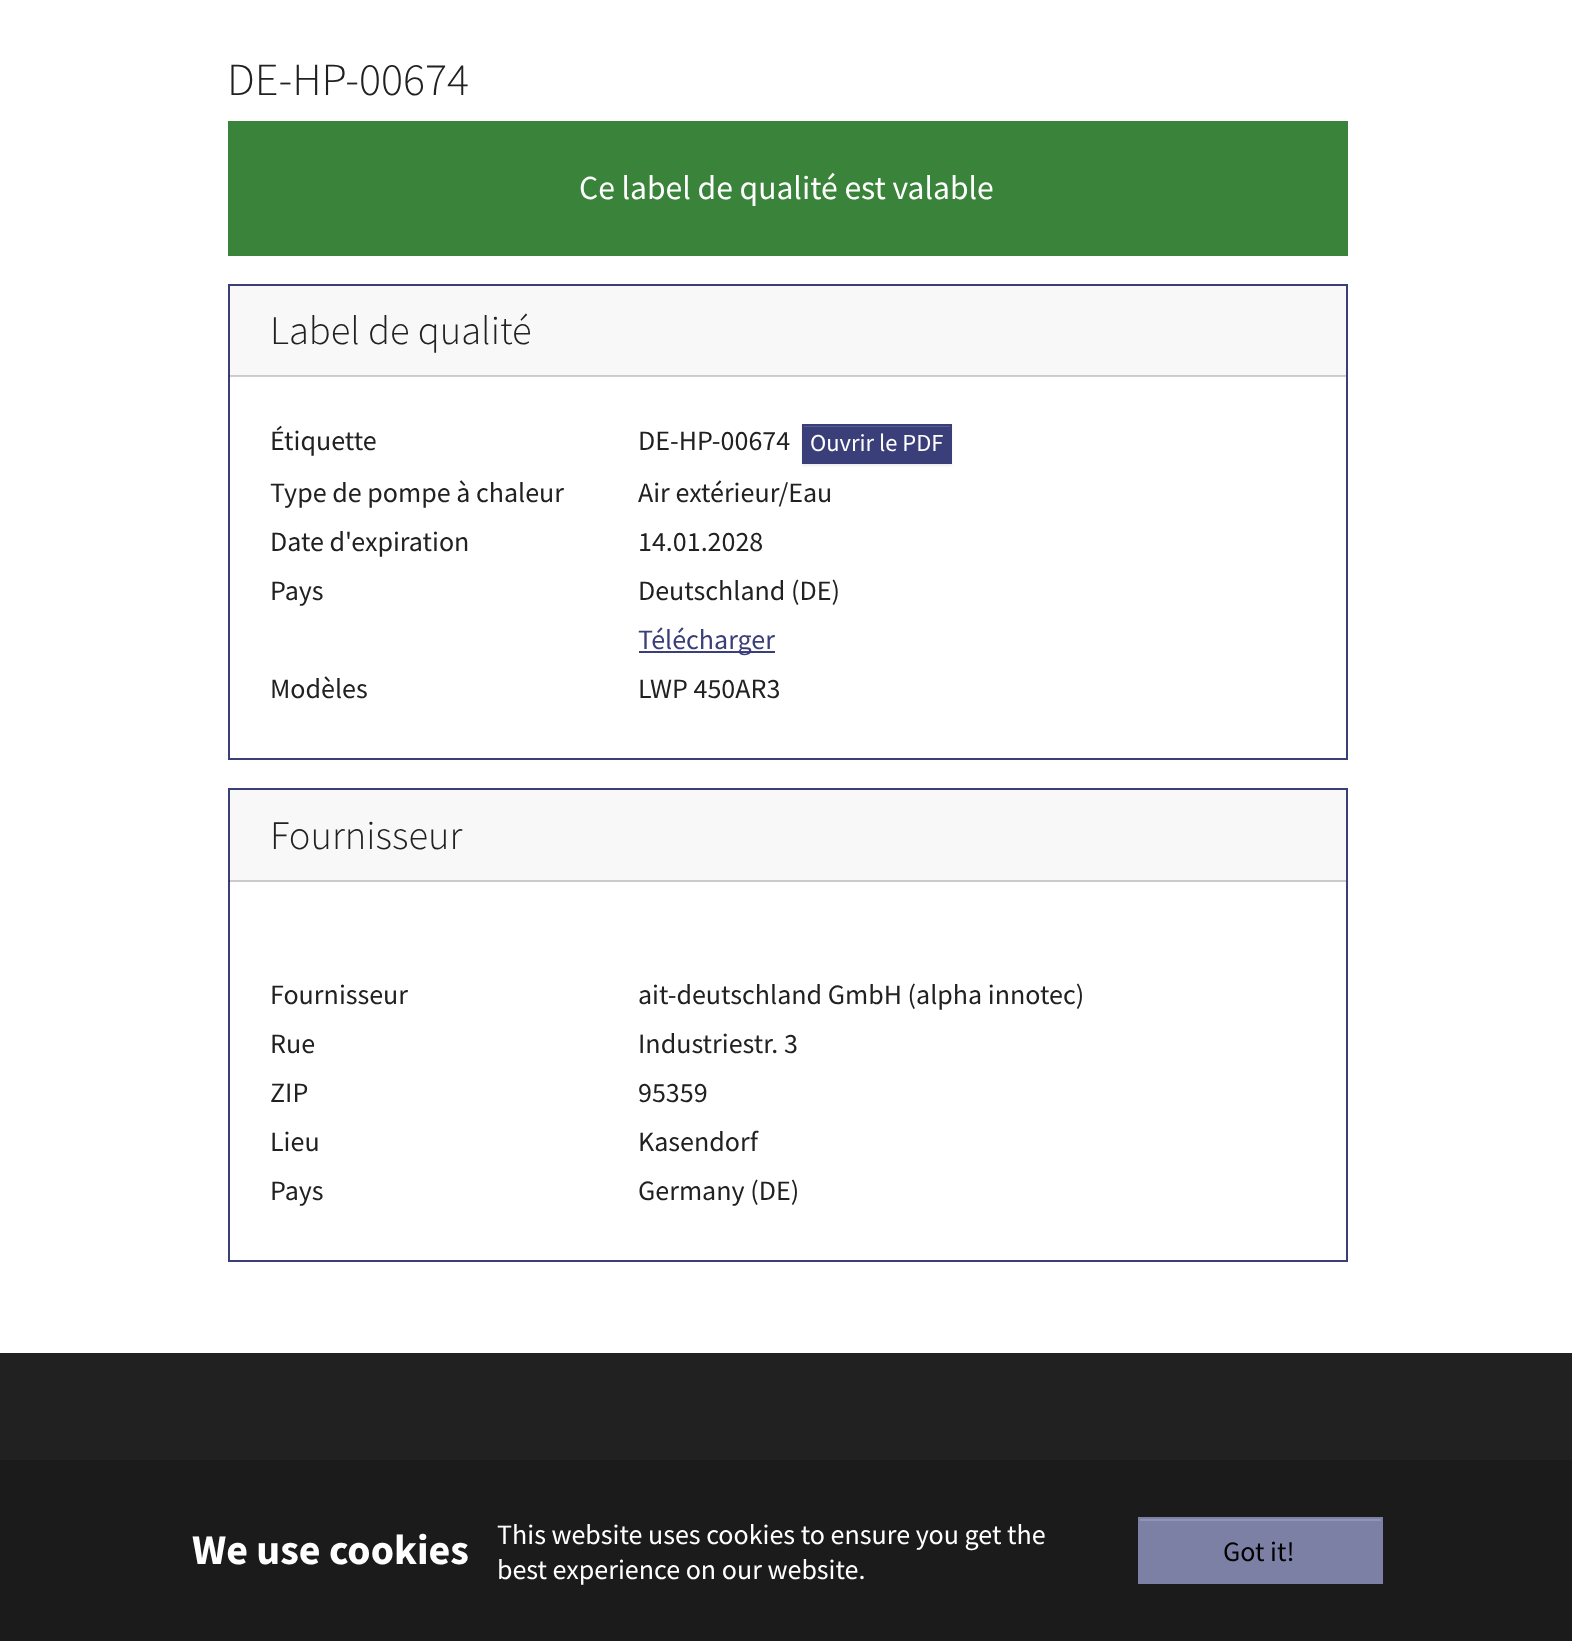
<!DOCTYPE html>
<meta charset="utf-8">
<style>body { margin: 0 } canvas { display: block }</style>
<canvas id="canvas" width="1572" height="1641"></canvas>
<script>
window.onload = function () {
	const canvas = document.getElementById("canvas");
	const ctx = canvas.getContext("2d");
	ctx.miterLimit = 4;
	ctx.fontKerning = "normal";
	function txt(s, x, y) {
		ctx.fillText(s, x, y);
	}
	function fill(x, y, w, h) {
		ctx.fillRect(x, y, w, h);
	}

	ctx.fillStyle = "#FFFFFF";
	fill(0, 0, 1572, 1641);
	ctx.fillStyle = "#3A833A";
	fill(228, 121, 1120, 135);
	ctx.strokeStyle = "#3B3F79";
	ctx.lineWidth = 2;
	ctx.strokeRect(229, 285, 1118, 474);
	ctx.fillStyle = "rgba(33, 33, 33, 0.03)";
	fill(229, 285, 1117, 91);
	ctx.fillStyle = "rgba(0, 0, 0, 0.18)";
	fill(229, 375, 1117, 2);
	ctx.fillStyle = "rgba(0, 0, 0, 0.07)";
	ctx.filter = "blur(1px)";
	ctx.beginPath();
	ctx.rect(802, 425, 150, 41);
	ctx.fill();
	ctx.filter = "none";
	ctx.fillStyle = "#3B3F79";
	fill(804, 427, 146, 35);
	ctx.fillStyle = "#585C8D";
	fill(803, 426, 147, 1);
	ctx.strokeRect(803, 425, 148, 38);
	ctx.fillStyle = "#3B3F79";
	fill(639, 651, 136, 2);
	ctx.strokeRect(229, 789, 1118, 472);
	ctx.fillStyle = "rgba(33, 33, 33, 0.03)";
	fill(229, 789, 1117, 93);
	ctx.fillStyle = "rgba(0, 0, 0, 0.18)";
	fill(229, 880, 1117, 2);
	ctx.fillStyle = "#212121";
	fill(0, 1353, 1572, 107);
	ctx.fillStyle = "#1B1B1B";
	fill(0, 1460, 1572, 181);
	ctx.fillStyle = "#7D80A5";
	fill(1140, 1521, 241, 61);
	ctx.fillStyle = "#9193B3";
	fill(1139, 1519, 242, 2);
	ctx.strokeStyle = "#7D80A5";
	ctx.strokeRect(1139, 1518, 243, 65);
	ctx.font = "300 46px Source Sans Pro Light";
	ctx.fillStyle = "#212121";
	txt("DE-HP-00674", 227, 95);
	ctx.font = "33.6px Source Sans Pro";
	ctx.fillStyle = "#FFFFFF";
	txt("Ce label de qualité est valable", 579, 199);
	ctx.font = "300 40.5px Source Sans Pro Light";
	ctx.fillStyle = "#212121";
	txt("Label de qualité", 270, 344);
	ctx.font = "28px Source Sans Pro";
	txt("Étiquette", 270, 450);
	txt("DE-HP-00674", 638, 450);
	ctx.font = "24.5px Source Sans Pro";
	ctx.fillStyle = "#FFFFFF";
	txt("Ouvrir le PDF", 810, 451);
	ctx.font = "28px Source Sans Pro";
	ctx.fillStyle = "#212121";
	txt("Type de pompe à chaleur", 270, 502);
	txt("Air extérieur/Eau", 638, 502);
	txt("Date d'expiration", 270, 551);
	txt("14.01.2028", 638, 551);
	txt("Pays", 270, 600);
	txt("Deutschland (DE)", 638, 600);
	ctx.fillStyle = "#3B3F79";
	txt("Télécharger", 638, 649);
	ctx.fillStyle = "#212121";
	txt("Modèles", 270, 698);
	txt("LWP 450AR3", 638, 698);
	ctx.font = "300 40.5px Source Sans Pro Light";
	txt("Fournisseur", 270, 849);
	ctx.font = "28px Source Sans Pro";
	txt("Fournisseur", 270, 1004);
	txt("ait-deutschland GmbH (alpha innotec)", 638, 1004);
	txt("Rue", 270, 1053);
	txt("Industriestr. 3", 638, 1053);
	txt("ZIP", 270, 1102);
	txt("95359", 638, 1102);
	txt("Lieu", 270, 1151);
	txt("Kasendorf", 638, 1151);
	txt("Pays", 270, 1200);
	txt("Germany (DE)", 638, 1200);
	ctx.font = "bold 42px Source Sans Pro";
	ctx.fillStyle = "#FFFFFF";
	txt("We use cookies", 192, 1564);
	ctx.font = "28px Source Sans Pro";
	txt("This website uses cookies to ensure you get the", 497, 1544);
	txt("best experience on our website.", 497, 1579);
	ctx.fillStyle = "#000000";
	txt("Got it!", 1223, 1561);
};
</script>
